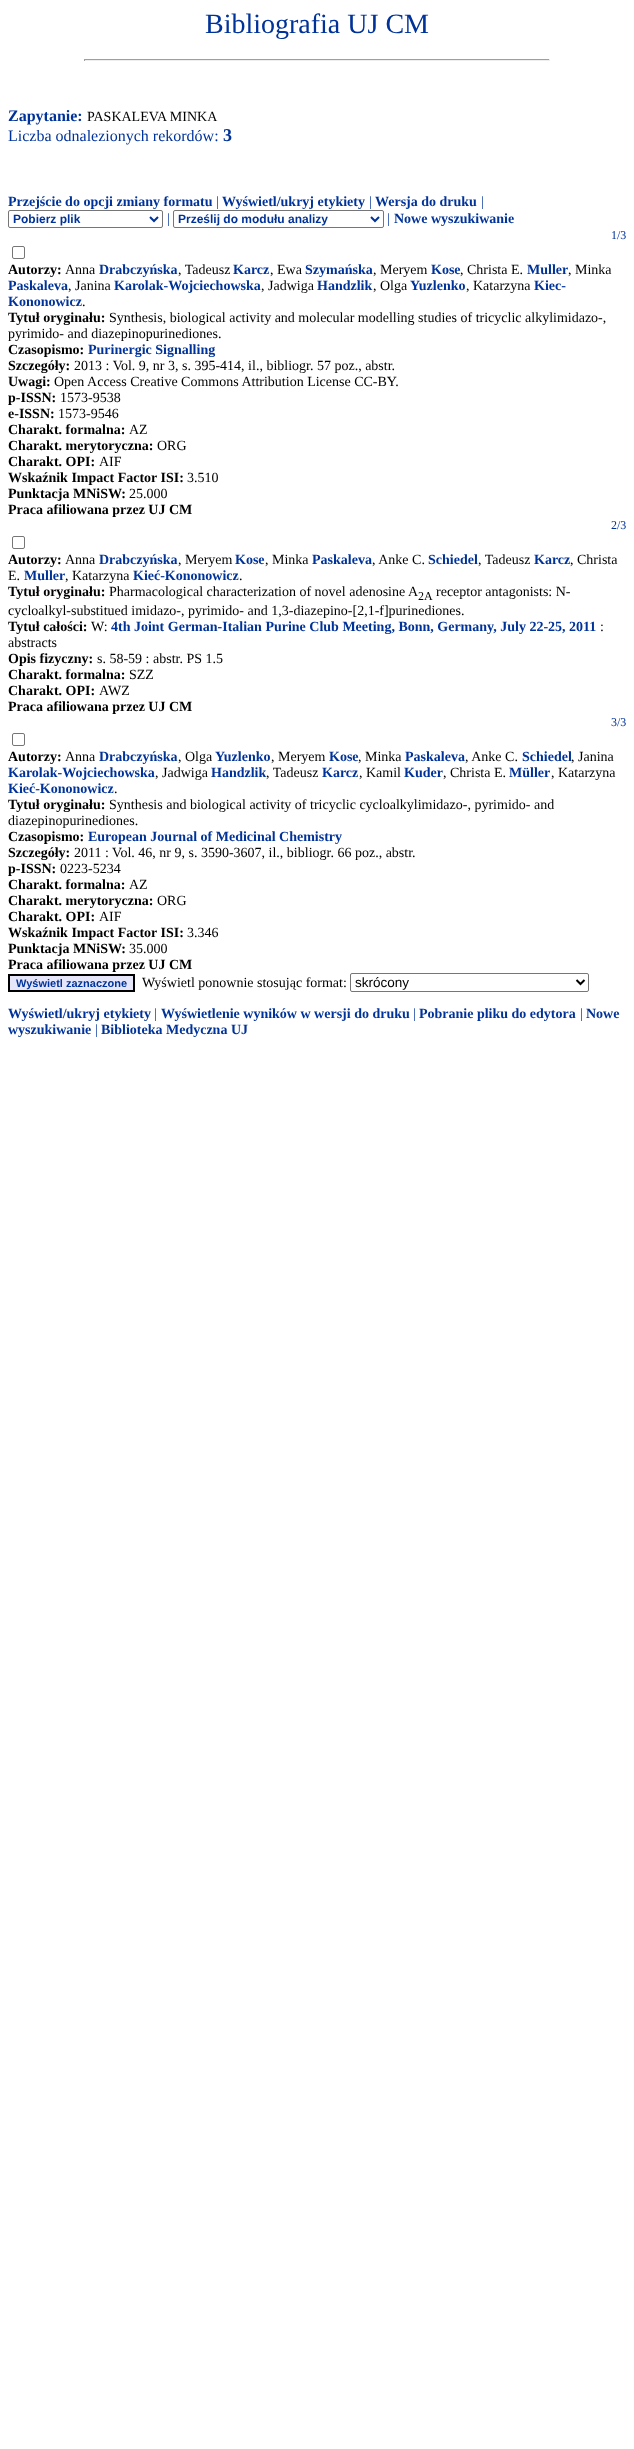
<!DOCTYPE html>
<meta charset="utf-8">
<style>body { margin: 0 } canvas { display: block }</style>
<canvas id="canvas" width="634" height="2449"></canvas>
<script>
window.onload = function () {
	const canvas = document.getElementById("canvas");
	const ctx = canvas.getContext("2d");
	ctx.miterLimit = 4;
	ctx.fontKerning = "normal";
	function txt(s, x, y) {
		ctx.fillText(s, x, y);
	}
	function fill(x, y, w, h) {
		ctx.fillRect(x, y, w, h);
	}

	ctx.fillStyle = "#FFFFFF";
	fill(0, 0, 634, 2449);
	ctx.fillStyle = "#9F9F9F";
	fill(84, 59, 466, 1);
	ctx.fillStyle = "#EEEEEE";
	fill(549, 59, 1, 2);
	fill(84, 60, 466, 1);
	ctx.fillStyle = "#9F9F9F";
	fill(84, 59, 1, 2);
	ctx.beginPath();
	ctx.roundRect(8.5, 210.5, 154, 17, 1.5);
	ctx.strokeStyle = "#767676";
	ctx.stroke();
	ctx.beginPath();
	ctx.moveTo(150, 217);
	ctx.lineTo(154, 221);
	ctx.lineTo(158, 217);
	ctx.strokeStyle = "#003399";
	ctx.lineWidth = 2;
	ctx.stroke();
	ctx.beginPath();
	ctx.roundRect(173.5, 210.5, 210, 17, 1.5);
	ctx.strokeStyle = "#767676";
	ctx.lineWidth = 1;
	ctx.stroke();
	ctx.beginPath();
	ctx.moveTo(371, 217);
	ctx.lineTo(375, 221);
	ctx.lineTo(379, 217);
	ctx.strokeStyle = "#003399";
	ctx.lineWidth = 2;
	ctx.stroke();
	ctx.beginPath();
	ctx.roundRect(12.5, 246.5, 12, 12, 1.5);
	ctx.strokeStyle = "#767676";
	ctx.lineWidth = 1;
	ctx.stroke();
	ctx.beginPath();
	ctx.roundRect(12.5, 536.5, 12, 12, 1.5);
	ctx.stroke();
	ctx.beginPath();
	ctx.roundRect(12.5, 733.5, 12, 12, 1.5);
	ctx.stroke();
	ctx.fillStyle = "#E6E6FA";
	ctx.beginPath();
	ctx.rect(9, 975, 125, 16);
	ctx.fill();
	ctx.strokeStyle = "#000000";
	ctx.lineWidth = 2;
	ctx.stroke();
	ctx.beginPath();
	ctx.roundRect(350.5, 973.5, 238, 18, 1.5);
	ctx.strokeStyle = "#767676";
	ctx.lineWidth = 1;
	ctx.stroke();
	ctx.beginPath();
	ctx.moveTo(576.5, 980);
	ctx.lineTo(580.5, 984);
	ctx.lineTo(584.5, 980);
	ctx.strokeStyle = "#000000";
	ctx.lineWidth = 2;
	ctx.stroke();
	ctx.font = "28px Liberation Serif";
	ctx.fillStyle = "#003399";
	txt("Bibliografia UJ CM", 205, 33);
	ctx.font = "bold 16px Liberation Serif";
	txt("Zapytanie:", 8, 121);
	ctx.font = "14px Liberation Serif";
	ctx.fillStyle = "#000000";
	txt("PASKALEVA MINKA", 87, 121);
	ctx.font = "16px Liberation Serif";
	ctx.fillStyle = "#003399";
	txt("Liczba odnalezionych rekordów:", 8, 141);
	ctx.font = "bold 18px Liberation Serif";
	txt("3", 223, 141);
	ctx.font = "bold 14px Liberation Serif";
	txt("Przejście do opcji zmiany formatu", 8, 206);
	ctx.font = "14px Liberation Serif";
	txt("|", 216, 206);
	ctx.font = "bold 14px Liberation Serif";
	txt("Wyświetl/ukryj etykiety", 222, 206);
	ctx.font = "14px Liberation Serif";
	txt("|", 369, 206);
	ctx.font = "bold 14px Liberation Serif";
	txt("Wersja do druku", 375, 206);
	ctx.font = "14px Liberation Serif";
	txt("|", 481, 206);
	ctx.font = "bold 12px Liberation Sans";
	txt("Pobierz plik", 13, 223);
	ctx.font = "14px Liberation Serif";
	txt("|", 167, 223);
	ctx.font = "bold 12px Liberation Sans";
	txt("Prześlij do modułu analizy", 178, 223);
	ctx.font = "14px Liberation Serif";
	txt("|", 387, 223);
	ctx.font = "bold 14px Liberation Serif";
	txt("Nowe wyszukiwanie", 394, 223);
	ctx.font = "12px Liberation Serif";
	txt("1/3", 611, 239);
	ctx.font = "bold 14px Liberation Serif";
	ctx.fillStyle = "#000000";
	txt("Autorzy:", 8, 274);
	ctx.font = "14px Liberation Serif";
	txt("Anna", 65, 274);
	ctx.font = "bold 14px Liberation Serif";
	ctx.fillStyle = "#003399";
	txt("Drabczyńska", 99, 274);
	ctx.font = "14px Liberation Serif";
	ctx.fillStyle = "#000000";
	txt(", Tadeusz", 178, 274);
	ctx.font = "bold 14px Liberation Serif";
	ctx.fillStyle = "#003399";
	txt("Karcz", 233, 274);
	ctx.font = "14px Liberation Serif";
	ctx.fillStyle = "#000000";
	txt(", Ewa", 270, 274);
	ctx.font = "bold 14px Liberation Serif";
	ctx.fillStyle = "#003399";
	txt("Szymańska", 305, 274);
	ctx.font = "14px Liberation Serif";
	ctx.fillStyle = "#000000";
	txt(", Meryem", 373, 274);
	ctx.font = "bold 14px Liberation Serif";
	ctx.fillStyle = "#003399";
	txt("Kose", 431, 274);
	ctx.font = "14px Liberation Serif";
	ctx.fillStyle = "#000000";
	txt(", Christa E.", 460, 274);
	ctx.font = "bold 14px Liberation Serif";
	ctx.fillStyle = "#003399";
	txt("Muller", 527, 274);
	ctx.font = "14px Liberation Serif";
	ctx.fillStyle = "#000000";
	txt(", Minka", 568, 274);
	ctx.font = "bold 14px Liberation Serif";
	ctx.fillStyle = "#003399";
	txt("Paskaleva", 8, 290);
	ctx.font = "14px Liberation Serif";
	ctx.fillStyle = "#000000";
	txt(", Janina", 68, 290);
	ctx.font = "bold 14px Liberation Serif";
	ctx.fillStyle = "#003399";
	txt("Karolak-Wojciechowska", 114, 290);
	ctx.font = "14px Liberation Serif";
	ctx.fillStyle = "#000000";
	txt(", Jadwiga", 261, 290);
	ctx.font = "bold 14px Liberation Serif";
	ctx.fillStyle = "#003399";
	txt("Handzlik", 317, 290);
	ctx.font = "14px Liberation Serif";
	ctx.fillStyle = "#000000";
	txt(", Olga", 373, 290);
	ctx.font = "bold 14px Liberation Serif";
	ctx.fillStyle = "#003399";
	txt("Yuzlenko", 410, 290);
	ctx.font = "14px Liberation Serif";
	ctx.fillStyle = "#000000";
	txt(", Katarzyna", 466, 290);
	ctx.font = "bold 14px Liberation Serif";
	ctx.fillStyle = "#003399";
	txt("Kiec-", 534, 290);
	txt("Kononowicz", 8, 306);
	ctx.font = "14px Liberation Serif";
	ctx.fillStyle = "#000000";
	txt(".", 82, 306);
	ctx.font = "bold 14px Liberation Serif";
	txt("Tytuł oryginału:", 8, 322);
	ctx.font = "14px Liberation Serif";
	txt("Synthesis, biological activity and molecular modelling studies of tricyclic alkylimidazo-,", 109, 322);
	txt("pyrimido- and diazepinopurinediones.", 8, 338);
	ctx.font = "bold 14px Liberation Serif";
	txt("Czasopismo:", 8, 354);
	ctx.fillStyle = "#003399";
	txt("Purinergic Signalling", 88, 354);
	ctx.fillStyle = "#000000";
	txt("Szczegóły:", 8, 370);
	ctx.font = "14px Liberation Serif";
	txt("2013 : Vol. 9, nr 3, s. 395-414, il., bibliogr. 57 poz., abstr.", 74, 370);
	ctx.font = "bold 14px Liberation Serif";
	txt("Uwagi:", 8, 386);
	ctx.font = "14px Liberation Serif";
	txt("Open Access Creative Commons Attribution License CC-BY.", 54, 386);
	ctx.font = "bold 14px Liberation Serif";
	txt("p-ISSN:", 8, 402);
	ctx.font = "14px Liberation Serif";
	txt("1573-9538", 60, 402);
	ctx.font = "bold 14px Liberation Serif";
	txt("e-ISSN:", 8, 418);
	ctx.font = "14px Liberation Serif";
	txt("1573-9546", 58, 418);
	ctx.font = "bold 14px Liberation Serif";
	txt("Charakt. formalna:", 8, 434);
	ctx.font = "14px Liberation Serif";
	txt("AZ", 129, 434);
	ctx.font = "bold 14px Liberation Serif";
	txt("Charakt. merytoryczna:", 8, 450);
	ctx.font = "14px Liberation Serif";
	txt("ORG", 157, 450);
	ctx.font = "bold 14px Liberation Serif";
	txt("Charakt. OPI:", 8, 466);
	ctx.font = "14px Liberation Serif";
	txt("AIF", 99, 466);
	ctx.font = "bold 14px Liberation Serif";
	txt("Wskaźnik Impact Factor ISI:", 8, 482);
	ctx.font = "14px Liberation Serif";
	txt("3.510", 187, 482);
	ctx.font = "bold 14px Liberation Serif";
	txt("Punktacja MNiSW:", 8, 498);
	ctx.font = "14px Liberation Serif";
	txt("25.000", 129, 498);
	ctx.font = "bold 14px Liberation Serif";
	txt("Praca afiliowana przez UJ CM", 8, 514);
	ctx.font = "12px Liberation Serif";
	ctx.fillStyle = "#003399";
	txt("2/3", 611, 529);
	ctx.font = "bold 14px Liberation Serif";
	ctx.fillStyle = "#000000";
	txt("Autorzy:", 8, 564);
	ctx.font = "14px Liberation Serif";
	txt("Anna", 65, 564);
	ctx.font = "bold 14px Liberation Serif";
	ctx.fillStyle = "#003399";
	txt("Drabczyńska", 99, 564);
	ctx.font = "14px Liberation Serif";
	ctx.fillStyle = "#000000";
	txt(", Meryem", 178, 564);
	ctx.font = "bold 14px Liberation Serif";
	ctx.fillStyle = "#003399";
	txt("Kose", 235, 564);
	ctx.font = "14px Liberation Serif";
	ctx.fillStyle = "#000000";
	txt(", Minka", 265, 564);
	ctx.font = "bold 14px Liberation Serif";
	ctx.fillStyle = "#003399";
	txt("Paskaleva", 312, 564);
	ctx.font = "14px Liberation Serif";
	ctx.fillStyle = "#000000";
	txt(", Anke C.", 372, 564);
	ctx.font = "bold 14px Liberation Serif";
	ctx.fillStyle = "#003399";
	txt("Schiedel", 428, 564);
	ctx.font = "14px Liberation Serif";
	ctx.fillStyle = "#000000";
	txt(", Tadeusz", 478, 564);
	ctx.font = "bold 14px Liberation Serif";
	ctx.fillStyle = "#003399";
	txt("Karcz", 534, 564);
	ctx.font = "14px Liberation Serif";
	ctx.fillStyle = "#000000";
	txt(", Christa", 570, 564);
	txt("E.", 8, 580);
	ctx.font = "bold 14px Liberation Serif";
	ctx.fillStyle = "#003399";
	txt("Muller", 24, 580);
	ctx.font = "14px Liberation Serif";
	ctx.fillStyle = "#000000";
	txt(", Katarzyna", 65, 580);
	ctx.font = "bold 14px Liberation Serif";
	ctx.fillStyle = "#003399";
	txt("Kieć-Kononowicz", 133, 580);
	ctx.font = "14px Liberation Serif";
	ctx.fillStyle = "#000000";
	txt(".", 239, 580);
	ctx.font = "bold 14px Liberation Serif";
	txt("Tytuł oryginału:", 8, 596);
	ctx.font = "14px Liberation Serif";
	txt("Pharmacological characterization of novel adenosine A", 109, 596);
	ctx.font = "12px Liberation Serif";
	txt("2A", 418, 600);
	ctx.font = "14px Liberation Serif";
	txt("receptor antagonists: N-", 436, 596);
	txt("cycloalkyl-substitued imidazo-, pyrimido- and 1,3-diazepino-[2,1-f]purinediones.", 8, 615);
	ctx.font = "bold 14px Liberation Serif";
	txt("Tytuł całości:", 8, 631);
	ctx.font = "14px Liberation Serif";
	txt("W:", 91, 631);
	ctx.font = "bold 14px Liberation Serif";
	ctx.fillStyle = "#003399";
	txt("4th Joint German-Italian Purine Club Meeting, Bonn, Germany, July 22-25, 2011", 111, 631);
	ctx.font = "14px Liberation Serif";
	ctx.fillStyle = "#000000";
	txt(":", 600, 631);
	txt("abstracts", 8, 647);
	ctx.font = "bold 14px Liberation Serif";
	txt("Opis fizyczny:", 8, 663);
	ctx.font = "14px Liberation Serif";
	txt("s. 58-59 : abstr. PS 1.5", 97, 663);
	ctx.font = "bold 14px Liberation Serif";
	txt("Charakt. formalna:", 8, 679);
	ctx.font = "14px Liberation Serif";
	txt("SZZ", 129, 679);
	ctx.font = "bold 14px Liberation Serif";
	txt("Charakt. OPI:", 8, 695);
	ctx.font = "14px Liberation Serif";
	txt("AWZ", 99, 695);
	ctx.font = "bold 14px Liberation Serif";
	txt("Praca afiliowana przez UJ CM", 8, 711);
	ctx.font = "12px Liberation Serif";
	ctx.fillStyle = "#003399";
	txt("3/3", 611, 726);
	ctx.font = "bold 14px Liberation Serif";
	ctx.fillStyle = "#000000";
	txt("Autorzy:", 8, 761);
	ctx.font = "14px Liberation Serif";
	txt("Anna", 65, 761);
	ctx.font = "bold 14px Liberation Serif";
	ctx.fillStyle = "#003399";
	txt("Drabczyńska", 99, 761);
	ctx.font = "14px Liberation Serif";
	ctx.fillStyle = "#000000";
	txt(", Olga", 178, 761);
	ctx.font = "bold 14px Liberation Serif";
	ctx.fillStyle = "#003399";
	txt("Yuzlenko", 215, 761);
	ctx.font = "14px Liberation Serif";
	ctx.fillStyle = "#000000";
	txt(", Meryem", 271, 761);
	ctx.font = "bold 14px Liberation Serif";
	ctx.fillStyle = "#003399";
	txt("Kose", 329, 761);
	ctx.font = "14px Liberation Serif";
	ctx.fillStyle = "#000000";
	txt(", Minka", 358, 761);
	ctx.font = "bold 14px Liberation Serif";
	ctx.fillStyle = "#003399";
	txt("Paskaleva", 405, 761);
	ctx.font = "14px Liberation Serif";
	ctx.fillStyle = "#000000";
	txt(", Anke C.", 465, 761);
	ctx.font = "bold 14px Liberation Serif";
	ctx.fillStyle = "#003399";
	txt("Schiedel", 522, 761);
	ctx.font = "14px Liberation Serif";
	ctx.fillStyle = "#000000";
	txt(", Janina", 571, 761);
	ctx.font = "bold 14px Liberation Serif";
	ctx.fillStyle = "#003399";
	txt("Karolak-Wojciechowska", 8, 777);
	ctx.font = "14px Liberation Serif";
	ctx.fillStyle = "#000000";
	txt(", Jadwiga", 155, 777);
	ctx.font = "bold 14px Liberation Serif";
	ctx.fillStyle = "#003399";
	txt("Handzlik", 211, 777);
	ctx.font = "14px Liberation Serif";
	ctx.fillStyle = "#000000";
	txt(", Tadeusz", 266, 777);
	ctx.font = "bold 14px Liberation Serif";
	ctx.fillStyle = "#003399";
	txt("Karcz", 322, 777);
	ctx.font = "14px Liberation Serif";
	ctx.fillStyle = "#000000";
	txt(", Kamil", 359, 777);
	ctx.font = "bold 14px Liberation Serif";
	ctx.fillStyle = "#003399";
	txt("Kuder", 404, 777);
	ctx.font = "14px Liberation Serif";
	ctx.fillStyle = "#000000";
	txt(", Christa E.", 443, 777);
	ctx.font = "bold 14px Liberation Serif";
	ctx.fillStyle = "#003399";
	txt("Müller", 509, 777);
	ctx.font = "14px Liberation Serif";
	ctx.fillStyle = "#000000";
	txt(", Katarzyna", 551, 777);
	ctx.font = "bold 14px Liberation Serif";
	ctx.fillStyle = "#003399";
	txt("Kieć-Kononowicz", 8, 793);
	ctx.font = "14px Liberation Serif";
	ctx.fillStyle = "#000000";
	txt(".", 114, 793);
	ctx.font = "bold 14px Liberation Serif";
	txt("Tytuł oryginału:", 8, 809);
	ctx.font = "14px Liberation Serif";
	txt("Synthesis and biological activity of tricyclic cycloalkylimidazo-, pyrimido- and", 109, 809);
	txt("diazepinopurinediones.", 8, 825);
	ctx.font = "bold 14px Liberation Serif";
	txt("Czasopismo:", 8, 841);
	ctx.fillStyle = "#003399";
	txt("European Journal of Medicinal Chemistry", 88, 841);
	ctx.fillStyle = "#000000";
	txt("Szczegóły:", 8, 857);
	ctx.font = "14px Liberation Serif";
	txt("2011 : Vol. 46, nr 9, s. 3590-3607, il., bibliogr. 66 poz., abstr.", 74, 857);
	ctx.font = "bold 14px Liberation Serif";
	txt("p-ISSN:", 8, 873);
	ctx.font = "14px Liberation Serif";
	txt("0223-5234", 60, 873);
	ctx.font = "bold 14px Liberation Serif";
	txt("Charakt. formalna:", 8, 889);
	ctx.font = "14px Liberation Serif";
	txt("AZ", 129, 889);
	ctx.font = "bold 14px Liberation Serif";
	txt("Charakt. merytoryczna:", 8, 905);
	ctx.font = "14px Liberation Serif";
	txt("ORG", 157, 905);
	ctx.font = "bold 14px Liberation Serif";
	txt("Charakt. OPI:", 8, 921);
	ctx.font = "14px Liberation Serif";
	txt("AIF", 99, 921);
	ctx.font = "bold 14px Liberation Serif";
	txt("Wskaźnik Impact Factor ISI:", 8, 937);
	ctx.font = "14px Liberation Serif";
	txt("3.346", 187, 937);
	ctx.font = "bold 14px Liberation Serif";
	txt("Punktacja MNiSW:", 8, 953);
	ctx.font = "14px Liberation Serif";
	txt("35.000", 129, 953);
	ctx.font = "bold 14px Liberation Serif";
	txt("Praca afiliowana przez UJ CM", 8, 969);
	ctx.font = "bold 11px Liberation Sans";
	ctx.fillStyle = "#003399";
	txt("Wyświetl zaznaczone", 16, 987);
	ctx.font = "14px Liberation Serif";
	ctx.fillStyle = "#000000";
	txt("Wyświetl ponownie stosując format:", 142, 987);
	ctx.font = "13.5px Liberation Sans";
	txt("skrócony", 355, 987);
	ctx.font = "bold 14px Liberation Serif";
	ctx.fillStyle = "#003399";
	txt("Wyświetl/ukryj etykiety", 8, 1018);
	ctx.font = "14px Liberation Serif";
	txt("|", 154, 1018);
	ctx.font = "bold 14px Liberation Serif";
	txt("Wyświetlenie wyników w wersji do druku", 161, 1018);
	ctx.font = "14px Liberation Serif";
	txt("|", 413, 1018);
	ctx.font = "bold 14px Liberation Serif";
	txt("Pobranie pliku do edytora", 419, 1018);
	ctx.font = "14px Liberation Serif";
	txt("|", 580, 1018);
	ctx.font = "bold 14px Liberation Serif";
	txt("Nowe", 586, 1018);
	txt("wyszukiwanie", 8, 1034);
	ctx.font = "14px Liberation Serif";
	txt("|", 95, 1034);
	ctx.font = "bold 14px Liberation Serif";
	txt("Biblioteka Medyczna UJ", 101, 1034);
};
</script>
